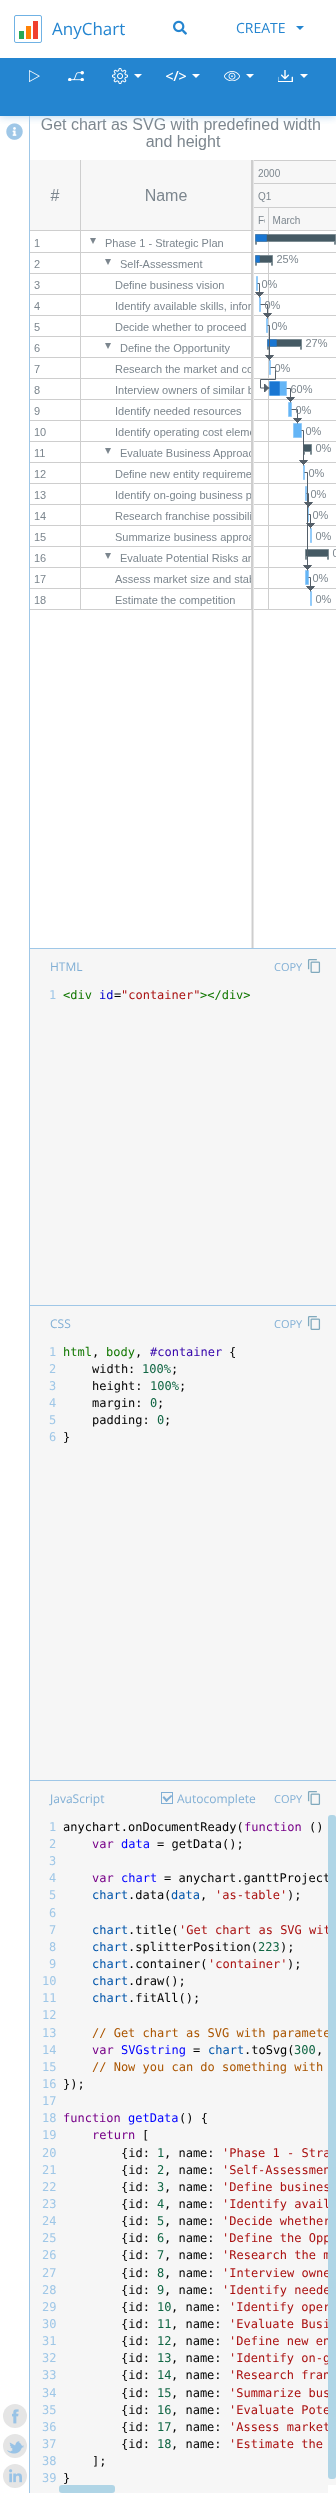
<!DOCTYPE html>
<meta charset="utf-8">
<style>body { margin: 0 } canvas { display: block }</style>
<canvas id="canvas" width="336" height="2493"></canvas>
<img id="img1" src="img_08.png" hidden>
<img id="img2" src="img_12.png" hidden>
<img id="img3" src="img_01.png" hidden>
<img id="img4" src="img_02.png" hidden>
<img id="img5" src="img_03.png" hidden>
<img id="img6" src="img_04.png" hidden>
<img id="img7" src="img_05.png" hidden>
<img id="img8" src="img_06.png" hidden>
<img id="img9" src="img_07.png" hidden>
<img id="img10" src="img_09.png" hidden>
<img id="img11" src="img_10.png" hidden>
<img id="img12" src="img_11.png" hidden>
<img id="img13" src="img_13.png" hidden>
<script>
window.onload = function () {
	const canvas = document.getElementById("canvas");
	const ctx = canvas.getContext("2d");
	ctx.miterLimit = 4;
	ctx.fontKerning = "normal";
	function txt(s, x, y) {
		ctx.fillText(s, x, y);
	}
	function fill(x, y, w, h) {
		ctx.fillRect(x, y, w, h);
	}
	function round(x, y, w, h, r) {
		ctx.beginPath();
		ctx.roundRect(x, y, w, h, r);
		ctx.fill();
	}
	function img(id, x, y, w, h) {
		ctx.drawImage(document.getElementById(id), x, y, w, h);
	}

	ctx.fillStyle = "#FFFFFF";
	fill(0, 0, 336, 2493);
	ctx.fillStyle = "#9FC7E7";
	fill(29, 116, 1, 2377);
	img("img1", 6, 123, 17, 17);
	img("img2", 30, 118, 306, 830);
	ctx.save();
	ctx.beginPath();
	ctx.rect(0, 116, 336, 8);
	ctx.clip();
	ctx.fillStyle = "#ACD0EC";
	ctx.filter = "blur(4px)";
	ctx.beginPath();
	ctx.rect(0, 0, 336, 116);
	ctx.fill();
	ctx.filter = "none";
	ctx.restore();
	ctx.beginPath();
	ctx.roundRect(14.5, 15.5, 27, 27, 1.5);
	ctx.strokeStyle = "#70B2E4";
	ctx.stroke();
	ctx.fillStyle = "#26A957";
	fill(19, 31, 5, 8);
	ctx.fillStyle = "#FF8207";
	fill(26, 26, 5, 13);
	ctx.fillStyle = "#F0402E";
	fill(33, 21, 5, 18);
	img("img3", 173, 20, 14, 15);
	ctx.fillStyle = "#2485D0";
	ctx.beginPath();
	ctx.moveTo(296, 26);
	ctx.lineTo(304, 26);
	ctx.lineTo(300, 30);
	ctx.closePath();
	ctx.fill();
	fill(0, 58, 336, 58);
	img("img4", 29, 70, 11, 12);
	img("img5", 68, 71, 16, 10);
	img("img6", 112, 68, 16, 16);
	ctx.fillStyle = "#FFFFFF";
	ctx.beginPath();
	ctx.moveTo(134, 74);
	ctx.lineTo(142, 74);
	ctx.lineTo(138, 78);
	ctx.closePath();
	ctx.fill();
	img("img7", 166, 71, 20, 10);
	ctx.beginPath();
	ctx.moveTo(192, 74);
	ctx.lineTo(200, 74);
	ctx.lineTo(196, 78);
	ctx.closePath();
	ctx.fill();
	img("img8", 224, 71, 16, 10);
	ctx.beginPath();
	ctx.moveTo(246, 74);
	ctx.lineTo(254, 74);
	ctx.lineTo(250, 78);
	ctx.closePath();
	ctx.fill();
	img("img9", 278, 70, 15, 12);
	ctx.beginPath();
	ctx.moveTo(300, 74);
	ctx.lineTo(308, 74);
	ctx.lineTo(304, 78);
	ctx.closePath();
	ctx.fill();
	ctx.fillStyle = "#E5E5E5";
	ctx.beginPath();
	ctx.arc(15, 2416, 12, 0, Math.PI * 2);
	ctx.fill();
	img("img10", 12, 2409, 7, 15);
	ctx.beginPath();
	ctx.arc(15, 2446, 12, 0, Math.PI * 2);
	ctx.fill();
	img("img11", 7, 2441, 17, 13);
	ctx.beginPath();
	ctx.arc(15, 2476, 12, 0, Math.PI * 2);
	ctx.fill();
	img("img12", 9, 2469, 13, 14);
	ctx.fillStyle = "#9FC7E7";
	fill(30, 948, 306, 1);
	ctx.fillStyle = "#F6F6F6";
	fill(30, 949, 306, 356);
	img("img13", 307, 959, 14, 14);
	ctx.fillStyle = "#9FC7E7";
	fill(30, 1305, 306, 1);
	ctx.fillStyle = "#F6F6F6";
	fill(30, 1306, 306, 474);
	img("img13", 307, 1316, 14, 14);
	ctx.fillStyle = "#9FC7E7";
	fill(30, 1780, 306, 1);
	ctx.fillStyle = "#F6F6F6";
	fill(30, 1781, 306, 712);
	ctx.strokeStyle = "#81AFD5";
	ctx.strokeRect(161.5, 1792.5, 11, 11);
	ctx.fillStyle = "#81AFD5";
	ctx.beginPath();
	ctx.moveTo(165, 1800.5);
	ctx.lineTo(171, 1795);
	ctx.lineTo(172.5, 1796);
	ctx.lineTo(166.5, 1802);
	ctx.closePath();
	ctx.fill();
	ctx.beginPath();
	ctx.moveTo(162.5, 1797.5);
	ctx.lineTo(164, 1796);
	ctx.lineTo(168, 1800.5);
	ctx.lineTo(166.5, 1802);
	ctx.closePath();
	ctx.fill();
	img("img13", 307, 1791, 14, 14);
	ctx.fillStyle = "#B0D5E6";
	round(59, 2485, 56, 8, 3);
	ctx.fillStyle = "#FFFFFF";
	fill(328, 2485, 8, 8);
	ctx.font = "17px Open Sans";
	ctx.fillStyle = "#2485D0";
	txt("AnyChart", 52, 35);
	ctx.font = "14px Open Sans";
	txt("CREATE", 236, 33);
	ctx.font = "12px Open Sans";
	ctx.fillStyle = "#81AFD5";
	txt("HTML", 50, 971);
	ctx.font = "11px Open Sans";
	txt("COPY", 274, 971);
	ctx.font = "12px DejaVu Sans Mono";
	ctx.fillStyle = "#9FC7E7";
	txt("1", 49, 999);
	ctx.fillStyle = "#117700";
	txt("<div", 63, 999);
	ctx.fillStyle = "#0000CC";
	txt("id", 99, 999);
	ctx.fillStyle = "#000000";
	txt("=", 114, 999);
	ctx.fillStyle = "#AA1111";
	txt("\"container\"", 121, 999);
	ctx.fillStyle = "#117700";
	txt("><\/div>", 200, 999);
	ctx.font = "12px Open Sans";
	ctx.fillStyle = "#81AFD5";
	txt("CSS", 50, 1328);
	ctx.font = "11px Open Sans";
	txt("COPY", 274, 1328);
	ctx.font = "12px DejaVu Sans Mono";
	ctx.fillStyle = "#9FC7E7";
	txt("1", 49, 1356);
	ctx.fillStyle = "#117700";
	txt("html", 63, 1356);
	ctx.fillStyle = "#000000";
	txt(",", 92, 1356);
	ctx.fillStyle = "#117700";
	txt("body", 106, 1356);
	ctx.fillStyle = "#000000";
	txt(",", 135, 1356);
	ctx.fillStyle = "#3300AA";
	txt("#container", 150, 1356);
	ctx.fillStyle = "#000000";
	txt("{", 229, 1356);
	ctx.fillStyle = "#9FC7E7";
	txt("2", 49, 1373);
	ctx.fillStyle = "#000000";
	txt("width:", 92, 1373);
	ctx.fillStyle = "#116644";
	txt("100%", 142, 1373);
	ctx.fillStyle = "#000000";
	txt(";", 171, 1373);
	ctx.fillStyle = "#9FC7E7";
	txt("3", 49, 1390);
	ctx.fillStyle = "#000000";
	txt("height:", 92, 1390);
	ctx.fillStyle = "#116644";
	txt("100%", 150, 1390);
	ctx.fillStyle = "#000000";
	txt(";", 179, 1390);
	ctx.fillStyle = "#9FC7E7";
	txt("4", 49, 1407);
	ctx.fillStyle = "#000000";
	txt("margin:", 92, 1407);
	ctx.fillStyle = "#116644";
	txt("0", 150, 1407);
	ctx.fillStyle = "#000000";
	txt(";", 157, 1407);
	ctx.fillStyle = "#9FC7E7";
	txt("5", 49, 1424);
	ctx.fillStyle = "#000000";
	txt("padding:", 92, 1424);
	ctx.fillStyle = "#116644";
	txt("0", 157, 1424);
	ctx.fillStyle = "#000000";
	txt(";", 164, 1424);
	ctx.fillStyle = "#9FC7E7";
	txt("6", 49, 1441);
	ctx.fillStyle = "#000000";
	txt("}", 63, 1441);
	ctx.font = "12px Open Sans";
	ctx.fillStyle = "#81AFD5";
	txt("JavaScript", 50, 1803);
	txt("Autocomplete", 177, 1803);
	ctx.font = "11px Open Sans";
	txt("COPY", 274, 1803);
	ctx.font = "12px DejaVu Sans Mono";
	ctx.fillStyle = "#9FC7E7";
	txt("1", 49, 1831);
	ctx.fillStyle = "#000000";
	txt("anychart.onDocumentReady(", 63, 1831);
	ctx.fillStyle = "#770088";
	txt("function", 244, 1831);
	ctx.fillStyle = "#000000";
	txt("()", 309, 1831);
	ctx.fillStyle = "#9FC7E7";
	txt("2", 49, 1848);
	ctx.fillStyle = "#770088";
	txt("var", 92, 1848);
	ctx.fillStyle = "#0000FF";
	txt("data", 121, 1848);
	ctx.fillStyle = "#000000";
	txt("= getData();", 157, 1848);
	ctx.fillStyle = "#9FC7E7";
	txt("3", 49, 1865);
	txt("4", 49, 1882);
	ctx.fillStyle = "#770088";
	txt("var", 92, 1882);
	ctx.fillStyle = "#0000FF";
	txt("chart", 121, 1882);
	ctx.fillStyle = "#000000";
	txt("= anychart.ganttProject", 164, 1882);
	ctx.fillStyle = "#9FC7E7";
	txt("5", 49, 1899);
	ctx.fillStyle = "#0055AA";
	txt("chart", 92, 1899);
	ctx.fillStyle = "#000000";
	txt(".data(", 128, 1899);
	ctx.fillStyle = "#0055AA";
	txt("data", 171, 1899);
	ctx.fillStyle = "#000000";
	txt(",", 200, 1899);
	ctx.fillStyle = "#AA1111";
	txt("'as-table'", 215, 1899);
	ctx.fillStyle = "#000000";
	txt(");", 287, 1899);
	ctx.fillStyle = "#9FC7E7";
	txt("6", 49, 1917);
	txt("7", 49, 1934);
	ctx.fillStyle = "#0055AA";
	txt("chart", 92, 1934);
	ctx.fillStyle = "#000000";
	txt(".title(", 128, 1934);
	ctx.fillStyle = "#AA1111";
	txt("'Get chart as SVG wit", 179, 1934);
	ctx.fillStyle = "#9FC7E7";
	txt("8", 49, 1951);
	ctx.fillStyle = "#0055AA";
	txt("chart", 92, 1951);
	ctx.fillStyle = "#000000";
	txt(".splitterPosition(", 128, 1951);
	ctx.fillStyle = "#116644";
	txt("223", 258, 1951);
	ctx.fillStyle = "#000000";
	txt(");", 280, 1951);
	ctx.fillStyle = "#9FC7E7";
	txt("9", 49, 1968);
	ctx.fillStyle = "#0055AA";
	txt("chart", 92, 1968);
	ctx.fillStyle = "#000000";
	txt(".container(", 128, 1968);
	ctx.fillStyle = "#AA1111";
	txt("'container'", 208, 1968);
	ctx.fillStyle = "#000000";
	txt(");", 287, 1968);
	ctx.fillStyle = "#9FC7E7";
	txt("10", 42, 1985);
	ctx.fillStyle = "#0055AA";
	txt("chart", 92, 1985);
	ctx.fillStyle = "#000000";
	txt(".draw();", 128, 1985);
	ctx.fillStyle = "#9FC7E7";
	txt("11", 42, 2002);
	ctx.fillStyle = "#0055AA";
	txt("chart", 92, 2002);
	ctx.fillStyle = "#000000";
	txt(".fitAll();", 128, 2002);
	ctx.fillStyle = "#9FC7E7";
	txt("12", 42, 2019);
	txt("13", 42, 2037);
	ctx.fillStyle = "#AA5500";
	txt("// Get chart as SVG with paramete", 92, 2037);
	ctx.fillStyle = "#9FC7E7";
	txt("14", 42, 2054);
	ctx.fillStyle = "#770088";
	txt("var", 92, 2054);
	ctx.fillStyle = "#0000FF";
	txt("SVGstring", 121, 2054);
	ctx.fillStyle = "#000000";
	txt("=", 193, 2054);
	ctx.fillStyle = "#0055AA";
	txt("chart", 208, 2054);
	ctx.fillStyle = "#000000";
	txt(".toSvg(", 244, 2054);
	ctx.fillStyle = "#116644";
	txt("300", 294, 2054);
	ctx.fillStyle = "#000000";
	txt(",", 316, 2054);
	ctx.fillStyle = "#9FC7E7";
	txt("15", 42, 2071);
	ctx.fillStyle = "#AA5500";
	txt("// Now you can do something with", 92, 2071);
	ctx.fillStyle = "#9FC7E7";
	txt("16", 42, 2088);
	ctx.fillStyle = "#000000";
	txt("});", 63, 2088);
	ctx.fillStyle = "#9FC7E7";
	txt("17", 42, 2105);
	txt("18", 42, 2122);
	ctx.fillStyle = "#770088";
	txt("function", 63, 2122);
	ctx.fillStyle = "#0000FF";
	txt("getData", 128, 2122);
	ctx.fillStyle = "#000000";
	txt("() {", 179, 2122);
	ctx.fillStyle = "#9FC7E7";
	txt("19", 42, 2139);
	ctx.fillStyle = "#770088";
	txt("return", 92, 2139);
	ctx.fillStyle = "#000000";
	txt("[", 142, 2139);
	ctx.fillStyle = "#9FC7E7";
	txt("20", 42, 2157);
	ctx.fillStyle = "#000000";
	txt("{id:", 121, 2157);
	ctx.fillStyle = "#116644";
	txt("1", 157, 2157);
	ctx.fillStyle = "#000000";
	txt(", name:", 164, 2157);
	ctx.fillStyle = "#AA1111";
	txt("'Phase 1 - Stra", 222, 2157);
	ctx.fillStyle = "#9FC7E7";
	txt("21", 42, 2174);
	ctx.fillStyle = "#000000";
	txt("{id:", 121, 2174);
	ctx.fillStyle = "#116644";
	txt("2", 157, 2174);
	ctx.fillStyle = "#000000";
	txt(", name:", 164, 2174);
	ctx.fillStyle = "#AA1111";
	txt("'Self-Assessmen", 222, 2174);
	ctx.fillStyle = "#9FC7E7";
	txt("22", 42, 2191);
	ctx.fillStyle = "#000000";
	txt("{id:", 121, 2191);
	ctx.fillStyle = "#116644";
	txt("3", 157, 2191);
	ctx.fillStyle = "#000000";
	txt(", name:", 164, 2191);
	ctx.fillStyle = "#AA1111";
	txt("'Define busines", 222, 2191);
	ctx.fillStyle = "#9FC7E7";
	txt("23", 42, 2208);
	ctx.fillStyle = "#000000";
	txt("{id:", 121, 2208);
	ctx.fillStyle = "#116644";
	txt("4", 157, 2208);
	ctx.fillStyle = "#000000";
	txt(", name:", 164, 2208);
	ctx.fillStyle = "#AA1111";
	txt("'Identify avail", 222, 2208);
	ctx.fillStyle = "#9FC7E7";
	txt("24", 42, 2225);
	ctx.fillStyle = "#000000";
	txt("{id:", 121, 2225);
	ctx.fillStyle = "#116644";
	txt("5", 157, 2225);
	ctx.fillStyle = "#000000";
	txt(", name:", 164, 2225);
	ctx.fillStyle = "#AA1111";
	txt("'Decide whether", 222, 2225);
	ctx.fillStyle = "#9FC7E7";
	txt("25", 42, 2242);
	ctx.fillStyle = "#000000";
	txt("{id:", 121, 2242);
	ctx.fillStyle = "#116644";
	txt("6", 157, 2242);
	ctx.fillStyle = "#000000";
	txt(", name:", 164, 2242);
	ctx.fillStyle = "#AA1111";
	txt("'Define the Opp", 222, 2242);
	ctx.fillStyle = "#9FC7E7";
	txt("26", 42, 2259);
	ctx.fillStyle = "#000000";
	txt("{id:", 121, 2259);
	ctx.fillStyle = "#116644";
	txt("7", 157, 2259);
	ctx.fillStyle = "#000000";
	txt(", name:", 164, 2259);
	ctx.fillStyle = "#AA1111";
	txt("'Research the m", 222, 2259);
	ctx.fillStyle = "#9FC7E7";
	txt("27", 42, 2277);
	ctx.fillStyle = "#000000";
	txt("{id:", 121, 2277);
	ctx.fillStyle = "#116644";
	txt("8", 157, 2277);
	ctx.fillStyle = "#000000";
	txt(", name:", 164, 2277);
	ctx.fillStyle = "#AA1111";
	txt("'Interview owne", 222, 2277);
	ctx.fillStyle = "#9FC7E7";
	txt("28", 42, 2294);
	ctx.fillStyle = "#000000";
	txt("{id:", 121, 2294);
	ctx.fillStyle = "#116644";
	txt("9", 157, 2294);
	ctx.fillStyle = "#000000";
	txt(", name:", 164, 2294);
	ctx.fillStyle = "#AA1111";
	txt("'Identify neede", 222, 2294);
	ctx.fillStyle = "#9FC7E7";
	txt("29", 42, 2311);
	ctx.fillStyle = "#000000";
	txt("{id:", 121, 2311);
	ctx.fillStyle = "#116644";
	txt("10", 157, 2311);
	ctx.fillStyle = "#000000";
	txt(", name:", 171, 2311);
	ctx.fillStyle = "#AA1111";
	txt("'Identify oper", 229, 2311);
	ctx.fillStyle = "#9FC7E7";
	txt("30", 42, 2328);
	ctx.fillStyle = "#000000";
	txt("{id:", 121, 2328);
	ctx.fillStyle = "#116644";
	txt("11", 157, 2328);
	ctx.fillStyle = "#000000";
	txt(", name:", 171, 2328);
	ctx.fillStyle = "#AA1111";
	txt("'Evaluate Busi", 229, 2328);
	ctx.fillStyle = "#9FC7E7";
	txt("31", 42, 2345);
	ctx.fillStyle = "#000000";
	txt("{id:", 121, 2345);
	ctx.fillStyle = "#116644";
	txt("12", 157, 2345);
	ctx.fillStyle = "#000000";
	txt(", name:", 171, 2345);
	ctx.fillStyle = "#AA1111";
	txt("'Define new en", 229, 2345);
	ctx.fillStyle = "#9FC7E7";
	txt("32", 42, 2362);
	ctx.fillStyle = "#000000";
	txt("{id:", 121, 2362);
	ctx.fillStyle = "#116644";
	txt("13", 157, 2362);
	ctx.fillStyle = "#000000";
	txt(", name:", 171, 2362);
	ctx.fillStyle = "#AA1111";
	txt("'Identify on-g", 229, 2362);
	ctx.fillStyle = "#9FC7E7";
	txt("33", 42, 2379);
	ctx.fillStyle = "#000000";
	txt("{id:", 121, 2379);
	ctx.fillStyle = "#116644";
	txt("14", 157, 2379);
	ctx.fillStyle = "#000000";
	txt(", name:", 171, 2379);
	ctx.fillStyle = "#AA1111";
	txt("'Research fran", 229, 2379);
	ctx.fillStyle = "#9FC7E7";
	txt("34", 42, 2397);
	ctx.fillStyle = "#000000";
	txt("{id:", 121, 2397);
	ctx.fillStyle = "#116644";
	txt("15", 157, 2397);
	ctx.fillStyle = "#000000";
	txt(", name:", 171, 2397);
	ctx.fillStyle = "#AA1111";
	txt("'Summarize bus", 229, 2397);
	ctx.fillStyle = "#9FC7E7";
	txt("35", 42, 2414);
	ctx.fillStyle = "#000000";
	txt("{id:", 121, 2414);
	ctx.fillStyle = "#116644";
	txt("16", 157, 2414);
	ctx.fillStyle = "#000000";
	txt(", name:", 171, 2414);
	ctx.fillStyle = "#AA1111";
	txt("'Evaluate Pote", 229, 2414);
	ctx.fillStyle = "#9FC7E7";
	txt("36", 42, 2431);
	ctx.fillStyle = "#000000";
	txt("{id:", 121, 2431);
	ctx.fillStyle = "#116644";
	txt("17", 157, 2431);
	ctx.fillStyle = "#000000";
	txt(", name:", 171, 2431);
	ctx.fillStyle = "#AA1111";
	txt("'Assess market", 229, 2431);
	ctx.fillStyle = "#9FC7E7";
	txt("37", 42, 2448);
	ctx.fillStyle = "#000000";
	txt("{id:", 121, 2448);
	ctx.fillStyle = "#116644";
	txt("18", 157, 2448);
	ctx.fillStyle = "#000000";
	txt(", name:", 171, 2448);
	ctx.fillStyle = "#AA1111";
	txt("'Estimate the", 229, 2448);
	ctx.fillStyle = "#9FC7E7";
	txt("38", 42, 2465);
	ctx.fillStyle = "#000000";
	txt("];", 92, 2465);
	ctx.fillStyle = "#9FC7E7";
	txt("39", 42, 2482);
	ctx.fillStyle = "#000000";
	txt("}", 63, 2482);
	ctx.fillStyle = "#B0D5E6";
	round(328, 1815, 8, 664, 3);
};
</script>
